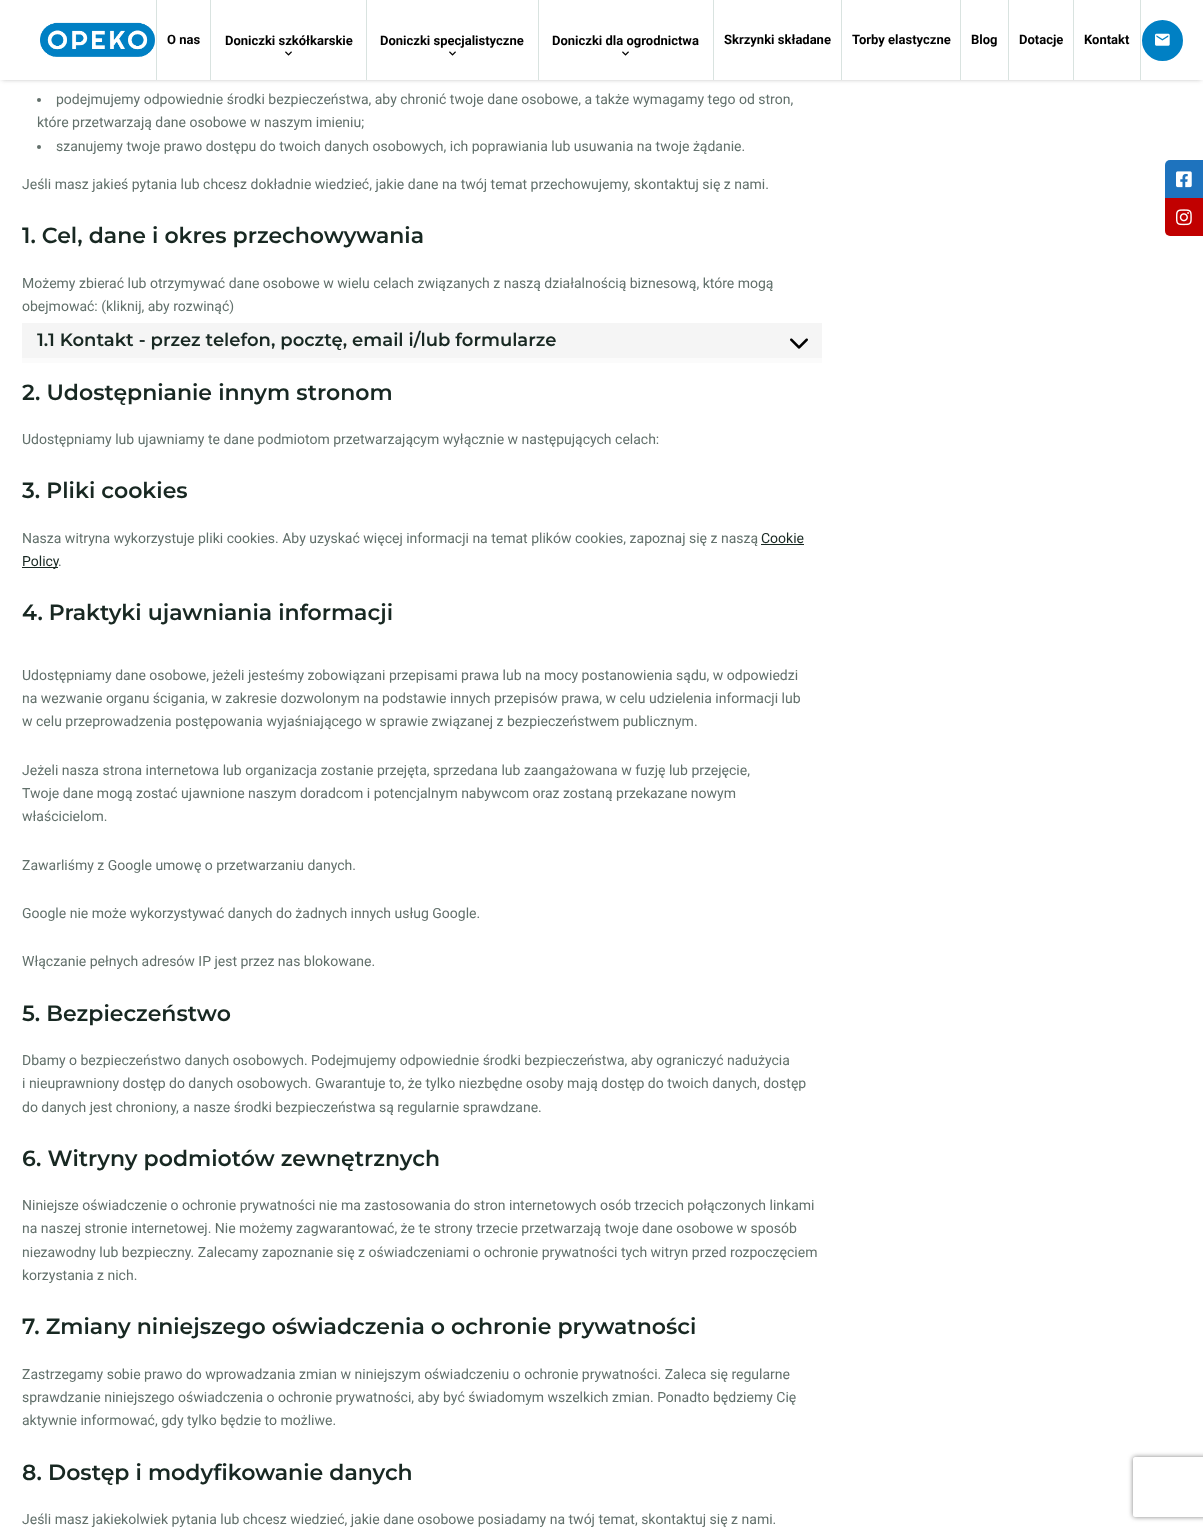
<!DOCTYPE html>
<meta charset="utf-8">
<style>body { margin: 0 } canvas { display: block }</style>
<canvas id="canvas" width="1203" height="1531"></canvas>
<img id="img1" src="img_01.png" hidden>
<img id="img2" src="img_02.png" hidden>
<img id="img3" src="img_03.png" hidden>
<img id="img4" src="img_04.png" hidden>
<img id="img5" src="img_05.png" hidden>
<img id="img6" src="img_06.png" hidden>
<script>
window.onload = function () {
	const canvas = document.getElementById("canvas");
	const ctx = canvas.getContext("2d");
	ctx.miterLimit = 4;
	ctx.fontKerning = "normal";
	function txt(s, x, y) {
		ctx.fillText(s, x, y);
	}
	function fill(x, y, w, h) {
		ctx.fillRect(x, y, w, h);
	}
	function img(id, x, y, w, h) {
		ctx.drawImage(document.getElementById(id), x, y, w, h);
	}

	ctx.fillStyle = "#FFFFFF";
	fill(0, 0, 1203, 1531);
	ctx.fillStyle = "rgba(42, 42, 42, 0.4)";
	ctx.filter = "blur(2.5px)";
	ctx.beginPath();
	ctx.rect(2, 3, 1199, 76);
	ctx.fill();
	ctx.filter = "none";
	ctx.fillStyle = "#FFFFFF";
	fill(0, 0, 1203, 80);
	img("img1", 40, 22, 115, 35);
	ctx.fillStyle = "#D9E3E0";
	fill(210, 0, 1, 80);
	fill(156, 0, 1, 80);
	fill(366, 0, 1, 80);
	img("img2", 285, 51, 7, 5);
	fill(538, 0, 1, 80);
	img("img2", 449, 51, 7, 5);
	fill(713, 0, 1, 80);
	img("img2", 622, 51, 7, 5);
	fill(841, 0, 1, 80);
	fill(960, 0, 1, 80);
	fill(1008, 0, 1, 80);
	fill(1073, 0, 1, 80);
	fill(1140, 0, 1, 80);
	ctx.fillStyle = "#0080C4";
	ctx.beginPath();
	ctx.arc(1162.5, 40.5, 19.5, 0, Math.PI * 2);
	ctx.fill();
	ctx.strokeStyle = "#0080C4";
	ctx.lineWidth = 2;
	ctx.stroke();
	img("img3", 1155, 33, 15, 13);
	ctx.fillStyle = "#62706B";
	ctx.beginPath();
	ctx.arc(39, 100, 2, 0, Math.PI * 2);
	ctx.fill();
	ctx.beginPath();
	ctx.arc(39, 147, 2, 0, Math.PI * 2);
	ctx.fill();
	ctx.fillStyle = "#FBFBFB";
	fill(22, 358, 800, 5);
	ctx.fillStyle = "#F5F5F5";
	fill(22, 323, 800, 35);
	img("img4", 790, 338, 18, 11);
	ctx.fillStyle = "#182822";
	fill(761, 544, 43, 1);
	fill(22, 567, 36, 1);
	ctx.fillStyle = "#1E73BE";
	ctx.beginPath();
	ctx.roundRect(1165, 160, 38, 38, [5, 0, 0, 0]);
	ctx.fill();
	img("img5", 1176, 171, 16, 17);
	ctx.fillStyle = "#C10000";
	ctx.beginPath();
	ctx.roundRect(1165, 198, 38, 38, [0, 0, 0, 5]);
	ctx.fill();
	img("img6", 1176, 209, 16, 17);
	ctx.save();
	ctx.beginPath();
	ctx.moveTo(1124, 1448);
	ctx.lineTo(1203, 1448);
	ctx.lineTo(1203, 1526);
	ctx.lineTo(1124, 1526);
	ctx.closePath();
	ctx.moveTo(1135, 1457);
	ctx.lineTo(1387, 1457);
	ctx.bezierCurveTo(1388, 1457, 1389, 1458, 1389, 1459);
	ctx.lineTo(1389, 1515);
	ctx.bezierCurveTo(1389, 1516, 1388, 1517, 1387, 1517);
	ctx.lineTo(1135, 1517);
	ctx.bezierCurveTo(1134, 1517, 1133, 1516, 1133, 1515);
	ctx.lineTo(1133, 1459);
	ctx.bezierCurveTo(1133, 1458, 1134, 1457, 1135, 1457);
	ctx.closePath();
	ctx.clip("evenodd");
	ctx.fillStyle = "#808080";
	ctx.filter = "blur(2.5px)";
	ctx.beginPath();
	ctx.roundRect(1133, 1457, 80, 60, 2);
	ctx.fill();
	ctx.filter = "none";
	ctx.restore();
	ctx.font = "bold 13px Roboto";
	ctx.fillStyle = "#000000";
	txt("O nas", 167, 44);
	txt("Doniczki szkółkarskie", 225, 45);
	txt("Doniczki specjalistyczne", 380, 45);
	txt("Doniczki dla ogrodnictwa", 552, 45);
	txt("Skrzynki składane", 724, 44);
	txt("Torby elastyczne", 852, 44);
	txt("Blog", 971, 44);
	txt("Dotacje", 1019, 44);
	txt("Kontakt", 1084, 44);
	ctx.font = "14px Roboto";
	ctx.fillStyle = "#62706B";
	txt("podejmujemy odpowiednie środki bezpieczeństwa, aby chronić twoje dane osobowe, a także wymagamy tego od stron,", 56, 104);
	txt("które przetwarzają dane osobowe w naszym imieniu;", 37, 127);
	txt("szanujemy twoje prawo dostępu do twoich danych osobowych, ich poprawiania lub usuwania na twoje żądanie.", 56, 151);
	txt("Jeśli masz jakieś pytania lub chcesz dokładnie wiedzieć, jakie dane na twój temat przechowujemy, skontaktuj się z nami.", 22, 189);
	ctx.font = "600 22px Montserrat";
	ctx.fillStyle = "#182822";
	txt("1. Cel, dane i okres przechowywania", 22, 243);
	ctx.font = "14px Roboto";
	ctx.fillStyle = "#62706B";
	txt("Możemy zbierać lub otrzymywać dane osobowe w wielu celach związanych z naszą działalnością biznesową, które mogą", 22, 288);
	txt("obejmować: (kliknij, aby rozwinąć)", 22, 311);
	ctx.font = "600 18px Montserrat";
	ctx.fillStyle = "#182822";
	txt("1.1 Kontakt - przez telefon, pocztę, email i/lub formularze", 37, 346);
	ctx.font = "600 22px Montserrat";
	txt("2. Udostępnianie innym stronom", 22, 400);
	ctx.font = "14px Roboto";
	ctx.fillStyle = "#62706B";
	txt("Udostępniamy lub ujawniamy te dane podmiotom przetwarzającym wyłącznie w następujących celach:", 22, 444);
	ctx.font = "600 22px Montserrat";
	ctx.fillStyle = "#182822";
	txt("3. Pliki cookies", 22, 498);
	ctx.font = "14px Roboto";
	ctx.fillStyle = "#62706B";
	txt("Nasza witryna wykorzystuje pliki cookies. Aby uzyskać więcej informacji na temat plików cookies, zapoznaj się z naszą", 22, 543);
	ctx.fillStyle = "#182822";
	txt("Cookie", 761, 543);
	txt("Policy", 22, 566);
	ctx.fillStyle = "#62706B";
	txt(".", 58, 566);
	ctx.font = "600 22px Montserrat";
	ctx.fillStyle = "#182822";
	txt("4. Praktyki ujawniania informacji", 22, 620);
	ctx.font = "14px Roboto";
	ctx.fillStyle = "#62706B";
	txt("Udostępniamy dane osobowe, jeżeli jesteśmy zobowiązani przepisami prawa lub na mocy postanowienia sądu, w odpowiedzi", 22, 680);
	txt("na wezwanie organu ścigania, w zakresie dozwolonym na podstawie innych przepisów prawa, w celu udzielenia informacji lub", 22, 703);
	txt("w celu przeprowadzenia postępowania wyjaśniającego w sprawie związanej z bezpieczeństwem publicznym.", 22, 726);
	txt("Jeżeli nasza strona internetowa lub organizacja zostanie przejęta, sprzedana lub zaangażowana w fuzję lub przejęcie,", 22, 775);
	txt("Twoje dane mogą zostać ujawnione naszym doradcom i potencjalnym nabywcom oraz zostaną przekazane nowym", 22, 798);
	txt("właścicielom.", 22, 821);
	txt("Zawarliśmy z Google umowę o przetwarzaniu danych.", 22, 870);
	txt("Google nie może wykorzystywać danych do żadnych innych usług Google.", 22, 918);
	txt("Włączanie pełnych adresów IP jest przez nas blokowane.", 22, 966);
	ctx.font = "600 22px Montserrat";
	ctx.fillStyle = "#182822";
	txt("5. Bezpieczeństwo", 22, 1021);
	ctx.font = "14px Roboto";
	ctx.fillStyle = "#62706B";
	txt("Dbamy o bezpieczeństwo danych osobowych. Podejmujemy odpowiednie środki bezpieczeństwa, aby ograniczyć nadużycia", 22, 1065);
	txt("i nieuprawniony dostęp do danych osobowych. Gwarantuje to, że tylko niezbędne osoby mają dostęp do twoich danych, dostęp", 22, 1088);
	txt("do danych jest chroniony, a nasze środki bezpieczeństwa są regularnie sprawdzane.", 22, 1112);
	ctx.font = "600 22px Montserrat";
	ctx.fillStyle = "#182822";
	txt("6. Witryny podmiotów zewnętrznych", 22, 1166);
	ctx.font = "14px Roboto";
	ctx.fillStyle = "#62706B";
	txt("Niniejsze oświadczenie o ochronie prywatności nie ma zastosowania do stron internetowych osób trzecich połączonych linkami", 22, 1210);
	txt("na naszej stronie internetowej. Nie możemy zagwarantować, że te strony trzecie przetwarzają twoje dane osobowe w sposób", 22, 1233);
	txt("niezawodny lub bezpieczny. Zalecamy zapoznanie się z oświadczeniami o ochronie prywatności tych witryn przed rozpoczęciem", 22, 1257);
	txt("korzystania z nich.", 22, 1280);
	ctx.font = "600 22px Montserrat";
	ctx.fillStyle = "#182822";
	txt("7. Zmiany niniejszego oświadczenia o ochronie prywatności", 22, 1334);
	ctx.font = "14px Roboto";
	ctx.fillStyle = "#62706B";
	txt("Zastrzegamy sobie prawo do wprowadzania zmian w niniejszym oświadczeniu o ochronie prywatności. Zaleca się regularne", 22, 1379);
	txt("sprawdzanie niniejszego oświadczenia o ochronie prywatności, aby być świadomym wszelkich zmian. Ponadto będziemy Cię", 22, 1402);
	txt("aktywnie informować, gdy tylko będzie to możliwe.", 22, 1425);
	ctx.font = "600 22px Montserrat";
	ctx.fillStyle = "#182822";
	txt("8. Dostęp i modyfikowanie danych", 22, 1480);
	ctx.font = "14px Roboto";
	ctx.fillStyle = "#62706B";
	txt("Jeśli masz jakiekolwiek pytania lub chcesz wiedzieć, jakie dane osobowe posiadamy na twój temat, skontaktuj się z nami.", 22, 1524);
};
</script>
